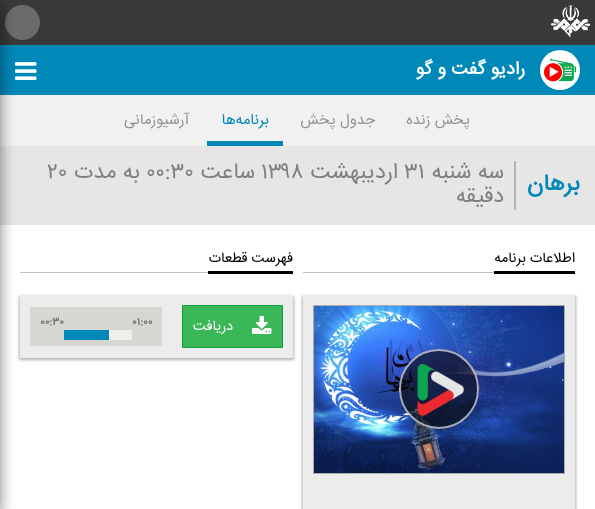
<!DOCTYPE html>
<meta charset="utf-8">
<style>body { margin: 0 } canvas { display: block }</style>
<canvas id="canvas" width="595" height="509"></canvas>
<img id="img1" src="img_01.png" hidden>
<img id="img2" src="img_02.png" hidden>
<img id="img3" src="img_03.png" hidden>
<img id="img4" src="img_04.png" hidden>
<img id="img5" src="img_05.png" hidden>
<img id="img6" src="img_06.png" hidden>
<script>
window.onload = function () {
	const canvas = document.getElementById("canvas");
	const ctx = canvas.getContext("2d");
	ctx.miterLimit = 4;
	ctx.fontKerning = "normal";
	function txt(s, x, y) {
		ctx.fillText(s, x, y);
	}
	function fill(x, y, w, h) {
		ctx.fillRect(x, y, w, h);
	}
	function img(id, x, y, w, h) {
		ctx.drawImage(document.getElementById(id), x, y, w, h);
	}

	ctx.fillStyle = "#F1F1F1";
	fill(0, 0, 595, 509);
	ctx.fillStyle = "#393939";
	fill(0, 0, 595, 45);
	img("img1", 551, 5, 39, 32);
	ctx.fillStyle = "#6B6B6B";
	ctx.beginPath();
	ctx.arc(22.5, 22.5, 17.5, 0, Math.PI * 2);
	ctx.fill();
	ctx.fillStyle = "#0088B9";
	fill(0, 45, 595, 50);
	ctx.fillStyle = "#FFFFFF";
	ctx.beginPath();
	ctx.arc(560, 70, 20, 0, Math.PI * 2);
	ctx.fill();
	img("img2", 544, 58, 33, 24);
	img("img3", 15, 62, 22, 18);
	ctx.fillStyle = "#0088B9";
	fill(207, 141, 76, 5);
	ctx.fillStyle = "#E6E6E6";
	fill(0, 146, 595, 79);
	ctx.fillStyle = "#FFFFFF";
	fill(0, 225, 595, 284);
	ctx.fillStyle = "#C1C1C1";
	fill(20, 272, 188, 1);
	ctx.fillStyle = "rgba(0, 0, 0, 0.3)";
	ctx.filter = "blur(1.5px)";
	ctx.beginPath();
	ctx.rect(19, 296, 275, 64);
	ctx.fill();
	ctx.filter = "none";
	ctx.fillStyle = "#ECECEC";
	fill(20, 295, 273, 63);
	ctx.fillStyle = "rgba(0, 0, 0, 0.5)";
	ctx.filter = "blur(7.5px)";
	ctx.beginPath();
	ctx.rect(-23, 5, 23, 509);
	ctx.fill();
	ctx.filter = "none";
	ctx.fillStyle = "#B5B5B5";
	fill(514, 161, 2, 49);
	ctx.fillStyle = "#000000";
	fill(494, 271, 81, 3);
	ctx.fillStyle = "#C1C1C1";
	fill(303, 272, 191, 1);
	ctx.fillStyle = "rgba(0, 0, 0, 0.3)";
	ctx.filter = "blur(1.5px)";
	ctx.beginPath();
	ctx.rect(302, 296, 274, 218);
	ctx.fill();
	ctx.filter = "none";
	ctx.fillStyle = "#ECECEC";
	fill(303, 295, 272, 214);
	ctx.strokeStyle = "#ABABAB";
	ctx.strokeRect(313.5, 305.5, 251, 168);
	img("img4", 314, 306, 250, 167);
	ctx.fillStyle = "rgba(8, 8, 8, 0.6)";
	ctx.beginPath();
	ctx.arc(439, 389, 40, 0, Math.PI * 2);
	ctx.fill();
	ctx.beginPath();
	ctx.arc(439, 389, 39, 0, Math.PI * 2);
	ctx.strokeStyle = "rgba(255, 255, 255, 0.63)";
	ctx.lineWidth = 2;
	ctx.stroke();
	img("img5", 399, 351, 65, 65);
	ctx.fillStyle = "#000000";
	fill(208, 271, 85, 3);
	ctx.fillStyle = "#3CB758";
	ctx.beginPath();
	ctx.rect(182.5, 305.5, 100, 42);
	ctx.fill();
	ctx.strokeStyle = "#0BA03D";
	ctx.lineWidth = 1;
	ctx.stroke();
	img("img6", 252, 316, 20, 18);
	ctx.fillStyle = "#D7D6D1";
	fill(30, 307, 132, 39);
	ctx.fillStyle = "#EFEFED";
	fill(109, 330, 23, 10);
	ctx.fillStyle = "#0088B9";
	fill(64, 330, 45, 10);
	ctx.direction = "rtl";
	ctx.font = "bold 18.25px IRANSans";
	ctx.fillStyle = "#FFFFFF";
	txt("رادیو گفت و گو", 525, 74);
	ctx.font = "15px IRANSans";
	ctx.fillStyle = "#939393";
	txt("پخش زنده", 470, 124);
	txt("جدول پخش", 375, 124);
	ctx.fillStyle = "#0088B9";
	txt("برنامه‌ها", 269, 124);
	ctx.fillStyle = "#939393";
	txt("آرشیوزمانی", 189, 124);
	ctx.font = "bold 23px IRANSans";
	ctx.fillStyle = "#0088B9";
	txt("برهان", 580, 190);
	ctx.font = "22px IRANSans";
	ctx.fillStyle = "#808080";
	txt("سه شنبه", 504, 178);
	ctx.direction = "ltr";
	txt("۳۱", 404, 178);
	ctx.direction = "rtl";
	txt("اردیبهشت", 398, 178);
	ctx.direction = "ltr";
	txt("۱۳۹۸", 261, 178);
	ctx.direction = "rtl";
	txt("ساعت", 255, 178);
	ctx.direction = "ltr";
	txt("۰۰:۳۰", 146, 178);
	ctx.direction = "rtl";
	txt("به مدت", 140, 178);
	ctx.direction = "ltr";
	txt("۲۰", 47, 178);
	ctx.direction = "rtl";
	txt("دقیقه", 504, 202);
	ctx.font = "14.25px IRANSans";
	ctx.fillStyle = "#000000";
	txt("اطلاعات برنامه", 575, 262);
	txt("فهرست قطعات", 293, 262);
	ctx.font = "14px IRANSans";
	ctx.fillStyle = "#FFFFFF";
	txt("دریافت", 233, 330);
	ctx.direction = "ltr";
	ctx.font = "bold 11px IRANSans";
	ctx.fillStyle = "#6F6F6F";
	txt("۰۱:۰۰", 132, 325);
	txt("۰۰:۳۰", 40, 325);
};
</script>
